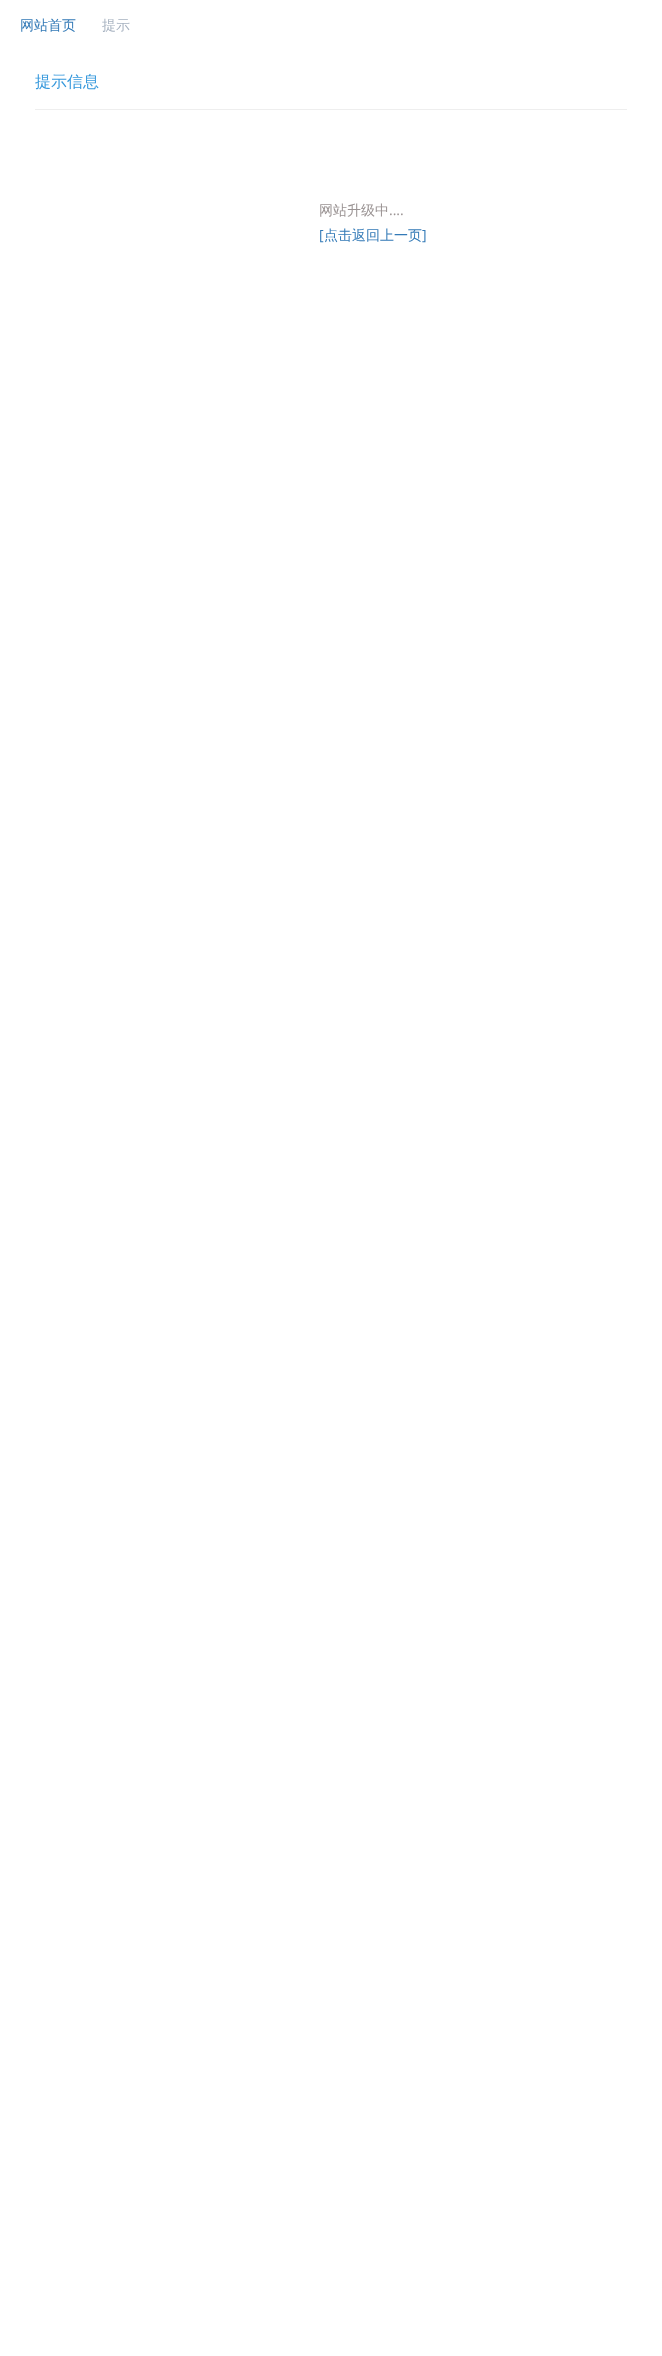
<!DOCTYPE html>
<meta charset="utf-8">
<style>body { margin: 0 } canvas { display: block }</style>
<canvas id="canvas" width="662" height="2356"></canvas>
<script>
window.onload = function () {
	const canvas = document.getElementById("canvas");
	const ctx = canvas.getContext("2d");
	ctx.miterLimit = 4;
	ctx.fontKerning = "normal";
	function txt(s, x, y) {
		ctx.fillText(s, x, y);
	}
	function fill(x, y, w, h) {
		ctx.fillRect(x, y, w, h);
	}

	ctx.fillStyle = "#FFFFFF";
	fill(0, 0, 662, 2356);
	ctx.fillStyle = "#EEEEEE";
	fill(35, 109, 592, 1);
	ctx.font = "500 14px WenQuanYi Zen Hei";
	ctx.fillStyle = "#337AB7";
	txt("网站首页", 20, 30);
	ctx.fillStyle = "#A7B2C0";
	txt("提示", 102, 30);
	ctx.font = "500 16px WenQuanYi Zen Hei";
	ctx.fillStyle = "#3598DC";
	txt("提示信息", 35, 87);
	ctx.font = "500 14px WenQuanYi Zen Hei";
	ctx.fillStyle = "#9A9393";
	txt("网站升级中", 319, 215);
	ctx.font = "14px Open Sans";
	txt("....", 389, 215);
	ctx.fillStyle = "#337AB7";
	txt("[", 319, 240);
	ctx.font = "500 14px WenQuanYi Zen Hei";
	txt("点击返回上一页", 324, 240);
	ctx.font = "14px Open Sans";
	txt("]", 422, 240);
};
</script>
